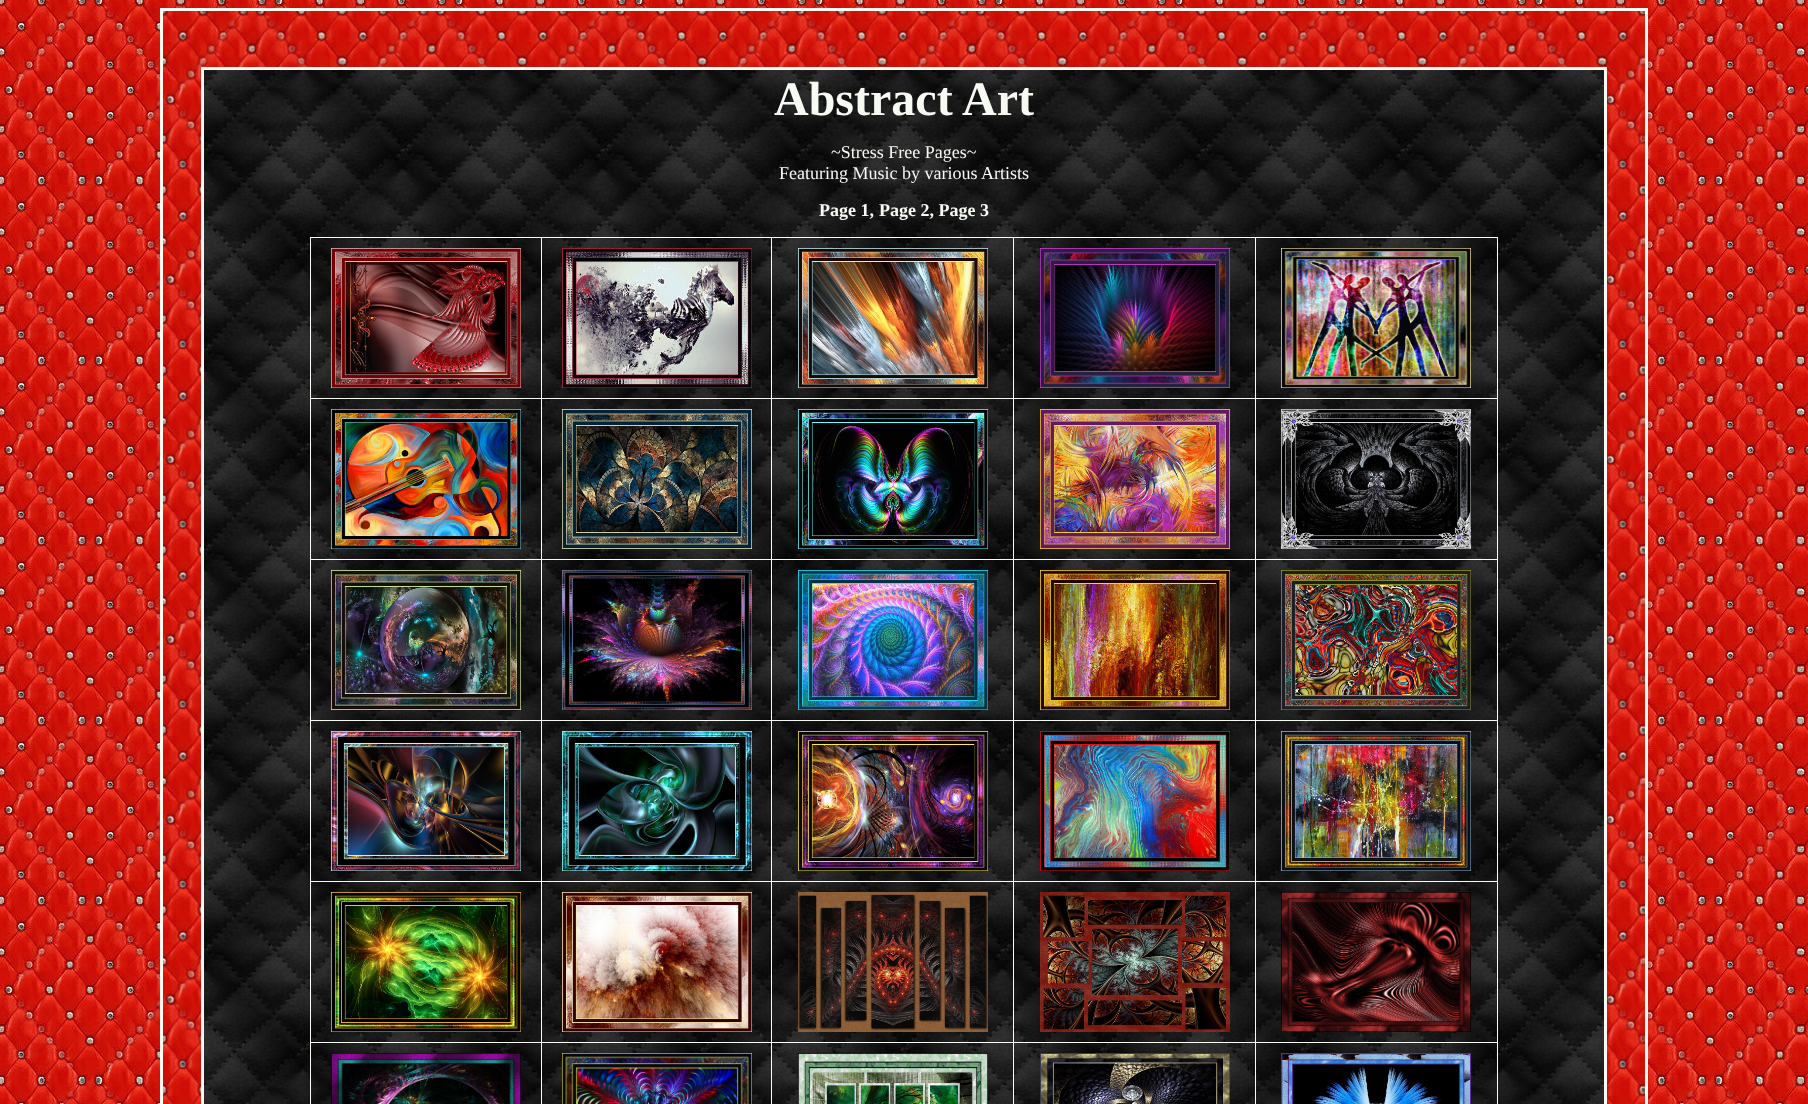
<!DOCTYPE html>
<meta charset="utf-8">
<style>body { margin: 0 } canvas { display: block }</style>
<canvas id="canvas" width="1808" height="1104"></canvas>
<img id="img1" src="img_01.png" hidden>
<img id="img2" src="img_02.png" hidden>
<img id="img3" src="img_03.png" hidden>
<img id="img4" src="img_04.png" hidden>
<img id="img5" src="img_05.png" hidden>
<img id="img6" src="img_06.png" hidden>
<img id="img7" src="img_07.png" hidden>
<img id="img8" src="img_08.png" hidden>
<img id="img9" src="img_09.png" hidden>
<img id="img10" src="img_10.png" hidden>
<img id="img11" src="img_11.png" hidden>
<img id="img12" src="img_12.png" hidden>
<img id="img13" src="img_13.png" hidden>
<img id="img14" src="img_14.png" hidden>
<img id="img15" src="img_15.png" hidden>
<img id="img16" src="img_16.png" hidden>
<img id="img17" src="img_17.png" hidden>
<img id="img18" src="img_18.png" hidden>
<img id="img19" src="img_19.png" hidden>
<img id="img20" src="img_20.png" hidden>
<img id="img21" src="img_21.png" hidden>
<img id="img22" src="img_22.png" hidden>
<img id="img23" src="img_23.png" hidden>
<img id="img24" src="img_24.png" hidden>
<img id="img25" src="img_25.png" hidden>
<img id="img26" src="img_26.png" hidden>
<img id="img27" src="img_27.png" hidden>
<img id="img28" src="img_28.png" hidden>
<img id="img29" src="img_29.png" hidden>
<img id="img30" src="img_30.png" hidden>
<img id="img31" src="img_31.png" hidden>
<img id="img32" src="img_32.png" hidden>
<img id="img33" src="img_33.png" hidden>
<script>
window.onload = function () {
	const canvas = document.getElementById("canvas");
	const ctx = canvas.getContext("2d");
	ctx.miterLimit = 4;
	ctx.fontKerning = "normal";
	function txt(s, x, y) {
		ctx.fillText(s, x, y);
	}
	function fill(x, y, w, h) {
		ctx.fillRect(x, y, w, h);
	}
	function img(id, x, y, w, h) {
		ctx.drawImage(document.getElementById(id), x, y, w, h);
	}

	ctx.fillStyle = "#FFFFFF";
	fill(0, 0, 1808, 1104);
	img("img1", 0, 0, 1808, 1104);
	img("img2", 163, 11, 1482, 1093);
	ctx.fillStyle = "#F6FAF3";
	fill(160, 8, 1488, 3);
	fill(1645, 8, 3, 1096);
	fill(160, 8, 3, 1096);
	img("img3", 204, 70, 1400, 1034);
	fill(201, 67, 1406, 3);
	fill(1604, 67, 3, 1037);
	fill(201, 67, 3, 1037);
	ctx.fillStyle = "#0000EE";
	fill(819, 217, 51, 1);
	fill(879, 217, 110, 1);
	ctx.fillStyle = "#F6FAF3";
	fill(310, 237, 1188, 1);
	fill(1497, 237, 1, 867);
	fill(310, 237, 1, 867);
	img("img4", 331, 248, 190, 140);
	fill(1255, 398, 243, 1);
	fill(1255, 559, 243, 1);
	fill(1255, 720, 243, 1);
	fill(1255, 881, 243, 1);
	fill(1255, 1042, 243, 1);
	fill(1255, 1042, 1, 62);
	fill(1013, 1042, 243, 1);
	fill(1255, 881, 1, 162);
	fill(1013, 881, 243, 1);
	fill(1255, 720, 1, 162);
	fill(1013, 720, 243, 1);
	fill(1255, 559, 1, 162);
	fill(1013, 559, 243, 1);
	fill(1255, 398, 1, 162);
	fill(1013, 398, 243, 1);
	fill(1013, 1042, 1, 62);
	fill(771, 1042, 243, 1);
	fill(1013, 881, 1, 162);
	fill(771, 881, 243, 1);
	fill(1013, 720, 1, 162);
	fill(771, 720, 243, 1);
	fill(1013, 559, 1, 162);
	fill(771, 559, 243, 1);
	fill(1013, 398, 1, 162);
	fill(771, 398, 243, 1);
	fill(771, 1042, 1, 62);
	fill(541, 1042, 231, 1);
	fill(771, 881, 1, 162);
	fill(541, 881, 231, 1);
	fill(771, 720, 1, 162);
	fill(541, 720, 231, 1);
	fill(771, 559, 1, 162);
	fill(541, 559, 231, 1);
	fill(771, 398, 1, 162);
	fill(541, 398, 231, 1);
	fill(541, 1042, 1, 62);
	fill(310, 1042, 232, 1);
	fill(541, 881, 1, 162);
	fill(310, 881, 232, 1);
	fill(541, 720, 1, 162);
	fill(310, 720, 232, 1);
	fill(541, 559, 1, 162);
	fill(310, 559, 232, 1);
	fill(541, 398, 1, 162);
	fill(310, 398, 232, 1);
	fill(541, 237, 1, 162);
	img("img5", 562, 248, 190, 140);
	fill(771, 237, 1, 162);
	img("img6", 798, 248, 190, 140);
	fill(1013, 237, 1, 162);
	img("img7", 1040, 248, 190, 140);
	fill(1255, 237, 1, 162);
	img("img8", 1281, 248, 190, 140);
	img("img9", 331, 409, 190, 140);
	img("img10", 562, 409, 190, 140);
	img("img11", 798, 409, 190, 140);
	img("img12", 1040, 409, 190, 140);
	img("img13", 1281, 409, 190, 140);
	img("img14", 331, 570, 190, 140);
	img("img15", 562, 570, 190, 140);
	img("img16", 798, 570, 190, 140);
	img("img17", 1040, 570, 190, 140);
	img("img18", 1281, 570, 190, 140);
	img("img19", 331, 731, 190, 140);
	img("img20", 562, 731, 190, 140);
	img("img21", 798, 731, 190, 140);
	img("img22", 1040, 731, 190, 140);
	img("img23", 1281, 731, 190, 140);
	img("img24", 331, 892, 190, 140);
	img("img25", 562, 892, 190, 140);
	img("img26", 798, 892, 190, 140);
	img("img27", 1040, 892, 190, 140);
	img("img28", 1281, 892, 190, 140);
	img("img29", 331, 1053, 190, 51);
	img("img30", 562, 1053, 190, 51);
	img("img31", 798, 1053, 190, 51);
	img("img32", 1040, 1053, 190, 51);
	img("img33", 1281, 1053, 190, 51);
	ctx.font = "bold 48px Liberation Serif";
	txt("Abstract Art", 774, 115);
	ctx.font = "18px Liberation Serif";
	txt("~Stress Free Pages~", 831, 158);
	txt("Featuring Music by various Artists", 779, 179);
	ctx.font = "bold 18px Liberation Serif";
	txt("Page 1,", 819, 216);
	txt("Page 2, Page 3", 879, 216);
};
</script>
